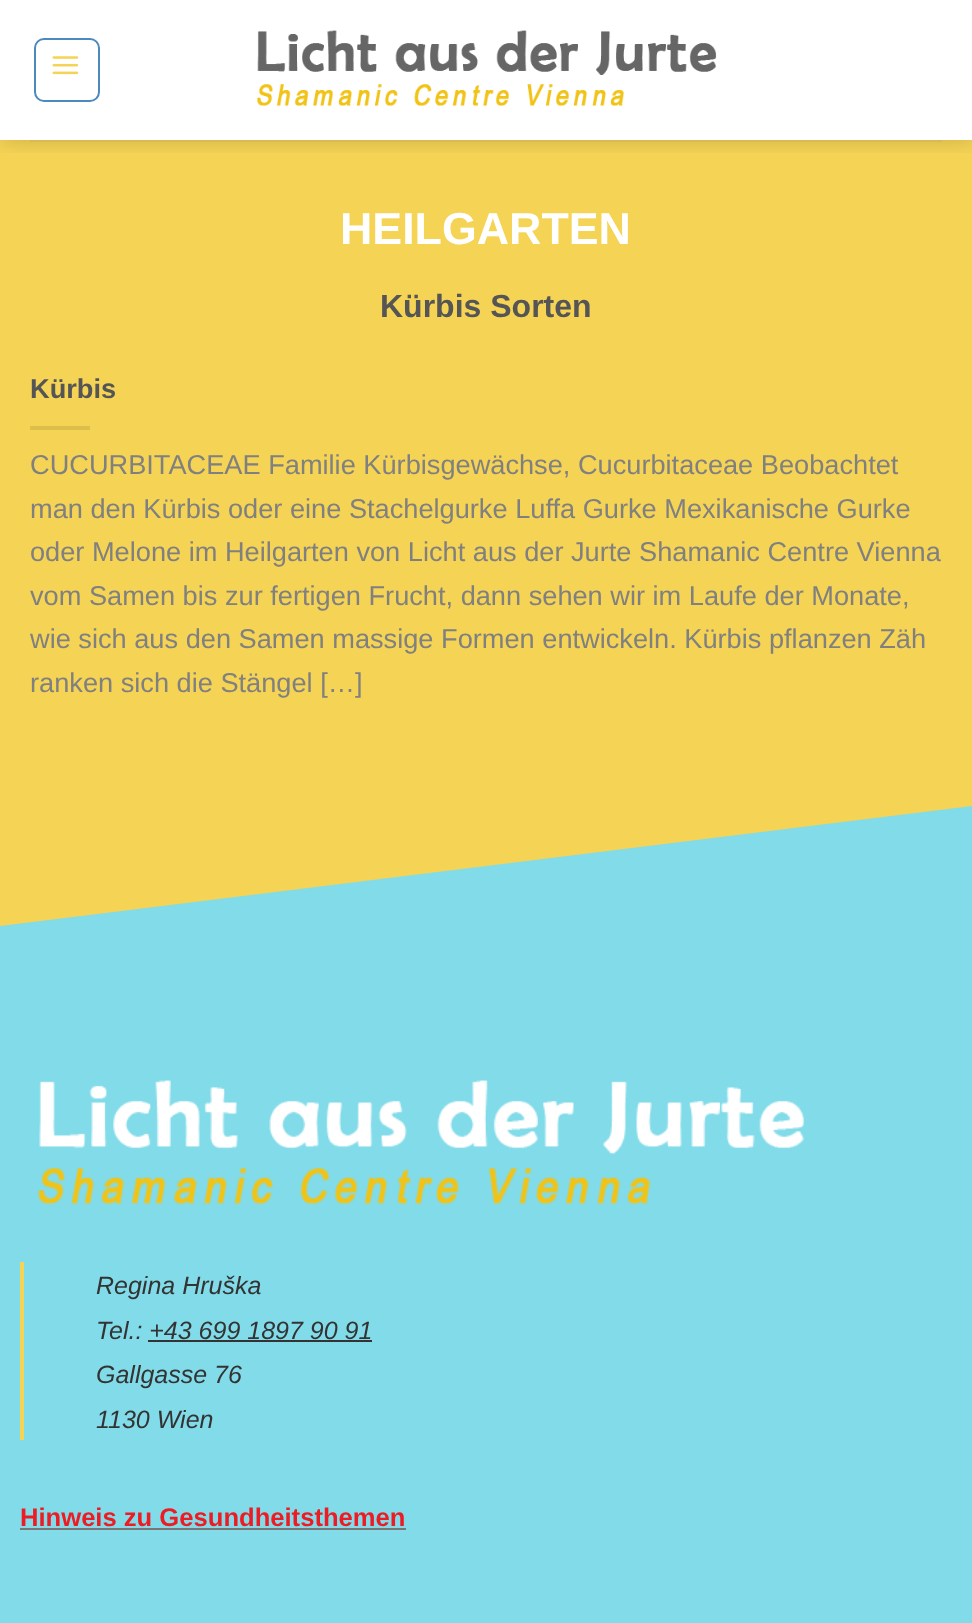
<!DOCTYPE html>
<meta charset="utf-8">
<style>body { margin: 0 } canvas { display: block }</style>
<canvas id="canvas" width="972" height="1623"></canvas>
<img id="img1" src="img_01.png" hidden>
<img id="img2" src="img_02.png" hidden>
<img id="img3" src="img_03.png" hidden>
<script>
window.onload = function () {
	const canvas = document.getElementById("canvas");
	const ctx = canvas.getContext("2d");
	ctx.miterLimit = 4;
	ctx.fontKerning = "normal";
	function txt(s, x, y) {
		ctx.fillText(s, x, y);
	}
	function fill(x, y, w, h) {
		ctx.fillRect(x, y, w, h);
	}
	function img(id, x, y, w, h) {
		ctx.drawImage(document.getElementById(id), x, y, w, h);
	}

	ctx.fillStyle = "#FFFFFF";
	fill(0, 0, 972, 1623);
	ctx.fillStyle = "#F5D355";
	fill(0, 140, 972, 786);
	ctx.save();
	ctx.beginPath();
	ctx.rect(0, 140, 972, 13);
	ctx.clip();
	ctx.fillStyle = "rgba(0, 0, 0, 0.15)";
	ctx.filter = "blur(10px)";
	ctx.beginPath();
	ctx.rect(2, 2, 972, 140);
	ctx.fill();
	ctx.filter = "none";
	ctx.restore();
	ctx.beginPath();
	ctx.roundRect(35, 39, 64, 62, 9);
	ctx.strokeStyle = "#4C89BF";
	ctx.lineWidth = 2;
	ctx.stroke();
	img("img1", 52, 56, 27, 19);
	img("img2", 256, 30, 461, 76);
	ctx.fillStyle = "#D7BA52";
	fill(30, 140, 912, 2);
	ctx.fillStyle = "#DDBE4D";
	fill(30, 426, 60, 4);
	ctx.fillStyle = "#82DBE9";
	ctx.beginPath();
	ctx.moveTo(0, 926);
	ctx.lineTo(0, 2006);
	ctx.lineTo(972, 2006);
	ctx.lineTo(972, 806);
	ctx.closePath();
	ctx.fill();
	img("img3", 37, 1080, 768, 125);
	ctx.fillStyle = "#F5D355";
	fill(20, 1262, 4, 178);
	ctx.fillStyle = "#333333";
	fill(148, 1340, 224, 2);
	ctx.fillStyle = "#777777";
	fill(20, 1528, 386, 2);
	ctx.font = "bold 44.75px Liberation Sans";
	ctx.fillStyle = "#FFFFFF";
	txt("HEILGARTEN", 340, 244);
	ctx.font = "bold 32px Liberation Sans";
	ctx.fillStyle = "#555555";
	txt("Kürbis Sorten", 380, 317);
	ctx.font = "bold 27.2px Liberation Sans";
	txt("Kürbis", 30, 398);
	ctx.font = "27.2px Liberation Sans";
	ctx.fillStyle = "#808080";
	txt("CUCURBITACEAE Familie Kürbisgewächse, Cucurbitaceae Beobachtet", 30, 474);
	txt("man den Kürbis oder eine Stachelgurke Luffa Gurke Mexikanische Gurke", 30, 518);
	txt("oder Melone im Heilgarten von Licht aus der Jurte Shamanic Centre Vienna", 30, 561);
	txt("vom Samen bis zur fertigen Frucht, dann sehen wir im Laufe der Monate,", 30, 605);
	txt("wie sich aus den Samen massige Formen entwickeln. Kürbis pflanzen Zäh", 30, 648);
	txt("ranken sich die Stängel […]", 30, 692);
	ctx.font = "italic 25px Liberation Sans";
	ctx.fillStyle = "#333333";
	txt("Regina Hruška", 96, 1294);
	txt("Tel.: +43 699 1897 90 91", 96, 1339);
	txt("Gallgasse 76", 96, 1383);
	txt("1130 Wien", 96, 1428);
	ctx.font = "bold 25.6px Liberation Sans";
	ctx.fillStyle = "#ED1C24";
	txt("Hinweis zu Gesundheitsthemen", 20, 1526);
};
</script>
